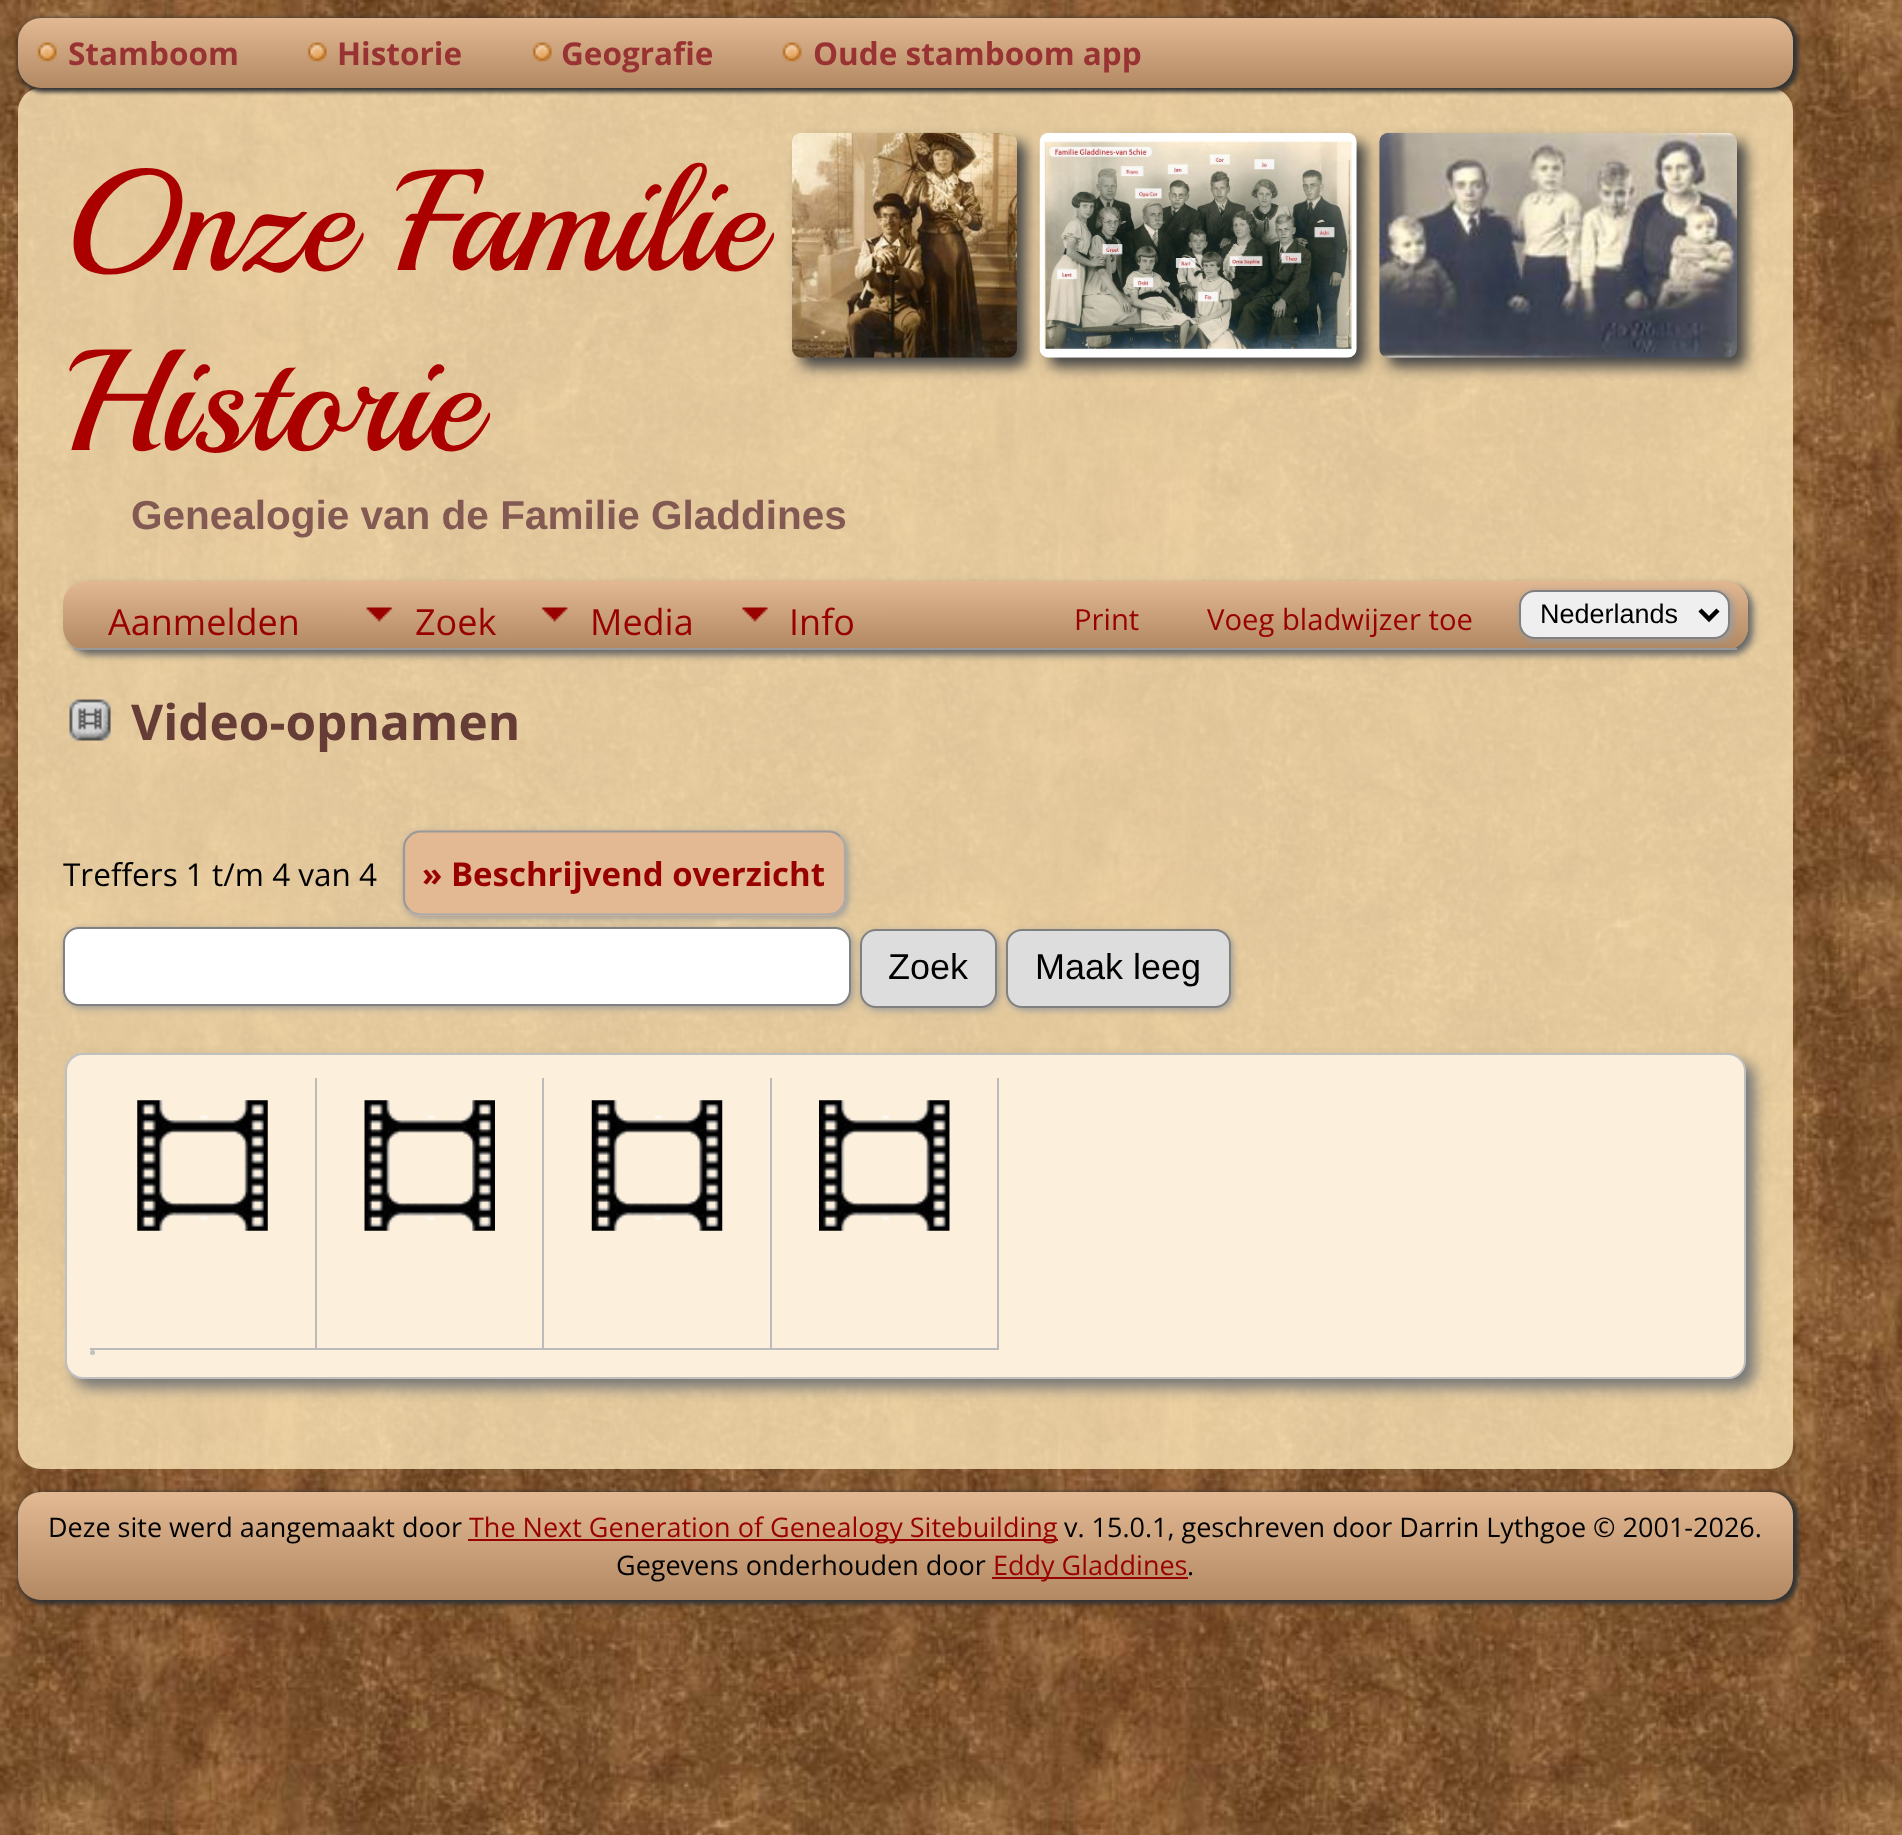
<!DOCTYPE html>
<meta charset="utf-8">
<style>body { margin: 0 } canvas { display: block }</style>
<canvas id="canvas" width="1902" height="1835"></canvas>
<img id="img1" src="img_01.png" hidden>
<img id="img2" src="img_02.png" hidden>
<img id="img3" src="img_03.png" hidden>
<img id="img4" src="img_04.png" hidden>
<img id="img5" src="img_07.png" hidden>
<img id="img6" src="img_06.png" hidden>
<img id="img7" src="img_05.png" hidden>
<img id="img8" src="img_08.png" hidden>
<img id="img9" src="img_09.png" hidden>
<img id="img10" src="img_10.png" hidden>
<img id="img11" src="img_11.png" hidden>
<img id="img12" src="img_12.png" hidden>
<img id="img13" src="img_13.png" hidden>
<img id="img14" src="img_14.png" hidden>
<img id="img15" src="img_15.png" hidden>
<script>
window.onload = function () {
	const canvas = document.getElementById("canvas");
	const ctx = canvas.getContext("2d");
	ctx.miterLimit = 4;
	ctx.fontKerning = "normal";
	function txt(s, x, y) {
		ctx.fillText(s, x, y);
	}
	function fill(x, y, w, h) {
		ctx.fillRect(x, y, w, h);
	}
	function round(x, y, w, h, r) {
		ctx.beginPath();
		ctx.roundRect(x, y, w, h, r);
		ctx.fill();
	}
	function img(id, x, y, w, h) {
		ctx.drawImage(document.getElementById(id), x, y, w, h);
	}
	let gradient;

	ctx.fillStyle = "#FFFFFF";
	fill(0, 0, 1902, 1835);
	img("img1", 0, 0, 1902, 1835);
	ctx.fillStyle = "rgba(253, 230, 184, 0.8)";
	round(18, 88, 1775, 1381, 23);
	ctx.fillStyle = "#333333";
	ctx.filter = "blur(2px)";
	ctx.beginPath();
	ctx.roundRect(18, 18, 1780, 74, 25);
	ctx.fill();
	ctx.filter = "none";
	gradient = ctx.createLinearGradient(906, 18, 906, 88);
	gradient.addColorStop(0, "#E2B993");
	gradient.addColorStop(1, "#B28963");
	ctx.fillStyle = gradient;
	round(18, 18, 1775, 70, 23);
	img("img2", 37, 42, 20, 20);
	img("img3", 307, 42, 20, 20);
	img("img3", 532, 42, 20, 20);
	img("img4", 782, 42, 20, 20);
	ctx.fillStyle = "#444444";
	ctx.filter = "blur(7px)";
	ctx.beginPath();
	ctx.roundRect(1388, 142, 358, 225, 9);
	ctx.fill();
	ctx.filter = "none";
	img("img5", 1379, 132, 358, 226);
	ctx.filter = "blur(7px)";
	ctx.beginPath();
	ctx.roundRect(1049, 142, 317, 225, 9);
	ctx.fill();
	ctx.filter = "none";
	img("img6", 1039, 132, 318, 226);
	ctx.filter = "blur(7px)";
	ctx.beginPath();
	ctx.roundRect(801, 142, 225, 225, 9);
	ctx.fill();
	ctx.filter = "none";
	img("img7", 792, 132, 225, 226);
	ctx.fillStyle = "#666666";
	ctx.filter = "blur(3.5px)";
	ctx.beginPath();
	ctx.roundRect(68, 585, 1685, 70, 23);
	ctx.fill();
	ctx.filter = "none";
	ctx.fillStyle = "#E2B993";
	round(63, 581, 1685, 69, 23);
	ctx.save();
	ctx.beginPath();
	ctx.roundRect(63, 581, 1685, 69, 23);
	ctx.clip();
	gradient = ctx.createLinearGradient(906, 580, 906, 648);
	gradient.addColorStop(0, "#E2B993");
	gradient.addColorStop(1, "#B28963");
	ctx.fillStyle = gradient;
	ctx.beginPath();
	ctx.roundRect(63, 581, 1685, 67, [23, 23, 0, 0]);
	ctx.fill();
	ctx.restore();
	ctx.fillStyle = "#999999";
	fill(74, 648, 1663, 2);
	img("img8", 347, 580, 175, 68);
	img("img9", 522, 580, 200, 68);
	img("img10", 722, 580, 160, 68);
	ctx.filter = "blur(3.5px)";
	ctx.beginPath();
	ctx.roundRect(1521, 592, 212, 49, 16);
	ctx.fill();
	ctx.filter = "none";
	ctx.fillStyle = "#EFEFEF";
	ctx.beginPath();
	ctx.roundRect(1520, 591, 209, 47, 15);
	ctx.fill();
	ctx.strokeStyle = "#808080";
	ctx.lineWidth = 2;
	ctx.stroke();
	ctx.beginPath();
	ctx.moveTo(1700, 610);
	ctx.lineTo(1709, 619);
	ctx.lineTo(1718, 610);
	ctx.strokeStyle = "#000000";
	ctx.lineWidth = 4.5;
	ctx.stroke();
	img("img11", 69, 699, 42, 42);
	ctx.fillStyle = "#999999";
	ctx.filter = "blur(3.5px)";
	ctx.beginPath();
	ctx.roundRect(405, 833, 443, 85, 18);
	ctx.fill();
	ctx.filter = "none";
	ctx.fillStyle = "#E2B993";
	round(403, 830, 443, 86, 18);
	ctx.beginPath();
	ctx.moveTo(840, 836.5);
	ctx.bezierCurveTo(843, 839.5, 845, 844, 845, 848);
	ctx.lineTo(845, 898);
	ctx.bezierCurveTo(845, 902, 843, 906.5, 840, 909.5);
	ctx.bezierCurveTo(837, 913, 832.5, 914.5, 828, 914.5);
	ctx.lineTo(421, 914.5);
	ctx.bezierCurveTo(416.5, 914.5, 412, 913, 409, 909.5);
	ctx.strokeStyle = "#AAAAAA";
	ctx.lineWidth = 2.2;
	ctx.stroke();
	ctx.beginPath();
	ctx.moveTo(409, 909.5);
	ctx.bezierCurveTo(405.5, 906.5, 404, 902, 404, 898);
	ctx.lineTo(404, 848);
	ctx.bezierCurveTo(404, 844, 405.5, 839.5, 409, 836.5);
	ctx.bezierCurveTo(412, 833, 416.5, 831.5, 421, 831.5);
	ctx.lineTo(828, 831.5);
	ctx.bezierCurveTo(832.5, 831.5, 837, 833, 840, 836.5);
	ctx.strokeStyle = "#999999";
	ctx.stroke();
	ctx.fillStyle = "#999999";
	ctx.filter = "blur(3.5px)";
	ctx.beginPath();
	ctx.roundRect(65, 929, 788, 79, 16);
	ctx.fill();
	ctx.filter = "none";
	ctx.fillStyle = "#FFFFFF";
	ctx.beginPath();
	ctx.roundRect(64, 928, 786, 77, 15);
	ctx.fill();
	ctx.strokeStyle = "#808080";
	ctx.lineWidth = 2;
	ctx.stroke();
	ctx.fillStyle = "#999999";
	ctx.filter = "blur(3.5px)";
	ctx.beginPath();
	ctx.roundRect(862, 932, 137, 78, 16);
	ctx.fill();
	ctx.filter = "none";
	ctx.fillStyle = "#DDDDDD";
	ctx.beginPath();
	ctx.roundRect(861, 930, 135, 77, 15);
	ctx.fill();
	ctx.stroke();
	ctx.fillStyle = "#999999";
	ctx.filter = "blur(3.5px)";
	ctx.beginPath();
	ctx.roundRect(1008, 932, 225, 78, 16);
	ctx.fill();
	ctx.filter = "none";
	ctx.fillStyle = "#DDDDDD";
	ctx.beginPath();
	ctx.roundRect(1007, 930, 223, 77, 15);
	ctx.fill();
	ctx.stroke();
	ctx.fillStyle = "#777777";
	ctx.filter = "blur(7px)";
	ctx.beginPath();
	ctx.roundRect(74, 1062, 1681, 326, 18);
	ctx.fill();
	ctx.filter = "none";
	ctx.fillStyle = "#FCF0DC";
	ctx.beginPath();
	ctx.roundRect(66, 1054, 1679, 324, 17);
	ctx.fill();
	ctx.strokeStyle = "#C0C0C0";
	ctx.stroke();
	ctx.fillStyle = "#BBBBBB";
	fill(315, 1078, 2, 272);
	fill(90, 1348, 227, 2);
	img("img12", 137, 1100, 131, 131);
	fill(542, 1078, 2, 272);
	fill(317, 1348, 228, 2);
	img("img13", 364, 1100, 131, 131);
	fill(770, 1078, 2, 272);
	fill(545, 1348, 227, 2);
	img("img14", 591, 1100, 132, 131);
	fill(997, 1078, 2, 272);
	fill(772, 1348, 227, 2);
	img("img15", 819, 1100, 131, 131);
	ctx.fillStyle = "#C0C0C0";
	ctx.beginPath();
	ctx.arc(92.5, 1352.5, 2.5, 0, Math.PI * 2);
	ctx.fill();
	ctx.fillStyle = "#333333";
	ctx.filter = "blur(2px)";
	ctx.beginPath();
	ctx.roundRect(18, 1492, 1780, 112, 25);
	ctx.fill();
	ctx.filter = "none";
	gradient = ctx.createLinearGradient(906, 1492, 906, 1600);
	gradient.addColorStop(0, "#E2B993");
	gradient.addColorStop(1, "#B28963");
	ctx.fillStyle = gradient;
	round(18, 1492, 1775, 108, 23);
	ctx.fillStyle = "#990000";
	fill(468, 1539, 590, 2);
	fill(992, 1577, 196, 2);
	ctx.font = "bold 31.5px Open Sans";
	ctx.fillStyle = "#993333";
	txt("Stamboom", 68, 65);
	txt("Historie", 337, 65);
	txt("Geografie", 561, 65);
	txt("Oude stamboom app", 813, 65);
	ctx.font = "144px Playball";
	ctx.fillStyle = "#AA0000";
	txt("Onze Familie", 63, 270);
	txt("Historie", 63, 450);
	ctx.font = "bold 40.5px Liberation Sans";
	ctx.fillStyle = "#825953";
	txt("Genealogie van de Familie Gladdines", 131, 529);
	ctx.font = "36px Open Sans";
	ctx.fillStyle = "#990000";
	txt("Aanmelden", 108, 635);
	txt("Zoek", 415, 635);
	txt("Media", 590, 635);
	txt("Info", 789, 635);
	ctx.font = "29.25px Open Sans";
	txt("Print", 1074, 630);
	txt("Voeg bladwijzer toe", 1207, 630);
	ctx.font = "27px Liberation Sans";
	ctx.fillStyle = "#000000";
	txt("Nederlands", 1540, 623);
	ctx.font = "bold 49.5px Open Sans";
	ctx.fillStyle = "#663C36";
	txt("Video-opnamen", 131, 740);
	ctx.font = "31.5px Open Sans";
	ctx.fillStyle = "#000000";
	txt("Treffers 1 t/m 4 van 4", 63, 886);
	ctx.font = "bold 33px Open Sans";
	ctx.fillStyle = "#990000";
	txt("» Beschrijvend overzicht", 422, 886);
	ctx.font = "36px Liberation Sans";
	ctx.fillStyle = "#000000";
	txt("Zoek", 888, 979);
	txt("Maak leeg", 1035, 979);
	ctx.font = "27px Open Sans";
	txt("Deze site werd aangemaakt door", 48, 1537);
	ctx.fillStyle = "#990000";
	txt("The Next Generation of Genealogy Sitebuilding", 469, 1537);
	ctx.fillStyle = "#000000";
	txt("v. 15.0.1, geschreven door Darrin Lythgoe © 2001-2026.", 1064, 1537);
	txt("Gegevens onderhouden door", 616, 1575);
	ctx.fillStyle = "#990000";
	txt("Eddy Gladdines", 993, 1575);
	ctx.fillStyle = "#000000";
	txt(".", 1187, 1575);
};
</script>
